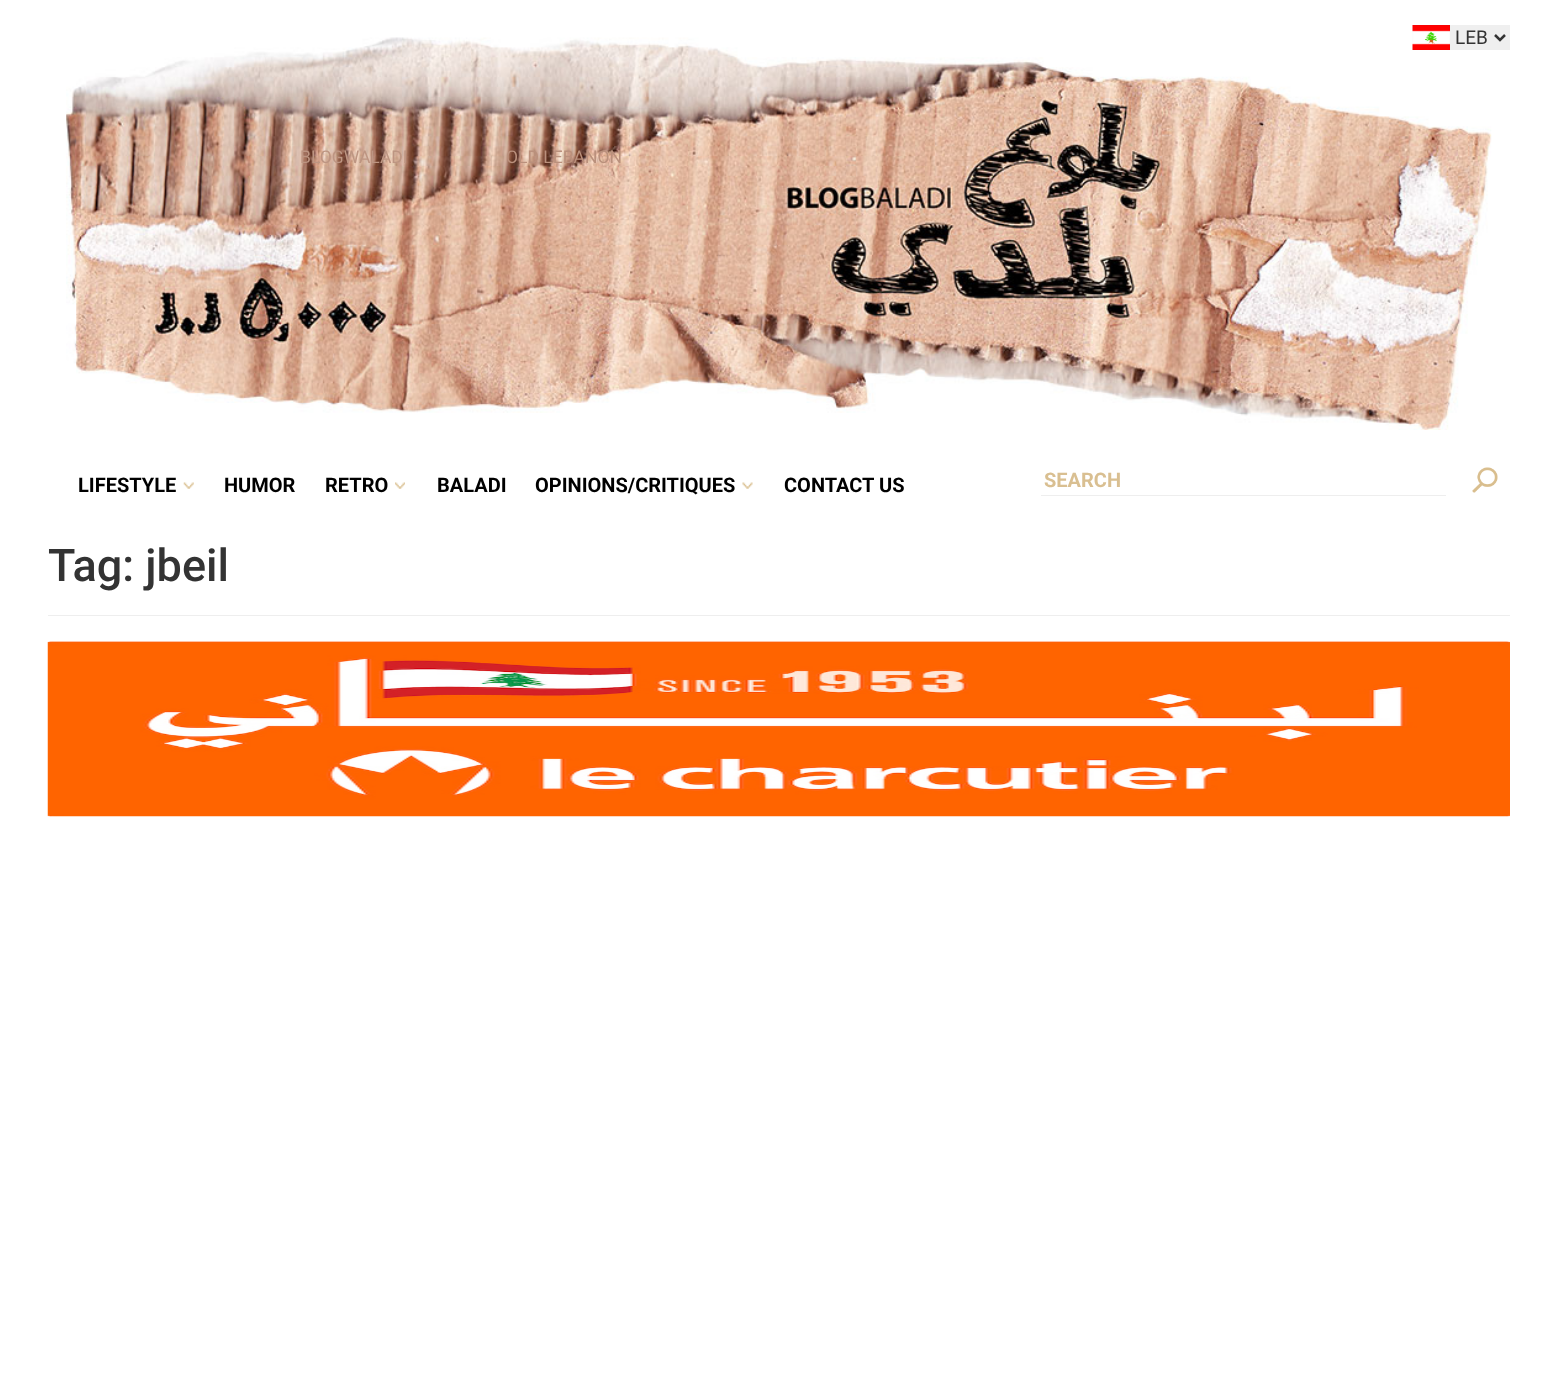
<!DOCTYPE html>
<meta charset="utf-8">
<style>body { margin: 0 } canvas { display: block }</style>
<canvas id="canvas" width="1557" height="1376"></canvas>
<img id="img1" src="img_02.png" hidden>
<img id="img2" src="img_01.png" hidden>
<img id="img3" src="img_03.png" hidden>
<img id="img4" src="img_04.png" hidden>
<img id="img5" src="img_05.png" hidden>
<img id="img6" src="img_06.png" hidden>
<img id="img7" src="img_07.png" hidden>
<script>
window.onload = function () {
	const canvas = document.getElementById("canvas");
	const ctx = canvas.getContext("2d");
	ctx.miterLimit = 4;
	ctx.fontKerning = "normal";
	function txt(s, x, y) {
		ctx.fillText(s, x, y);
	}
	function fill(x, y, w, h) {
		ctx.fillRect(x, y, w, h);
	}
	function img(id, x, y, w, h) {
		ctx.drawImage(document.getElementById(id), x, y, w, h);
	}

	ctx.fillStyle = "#FFFFFF";
	fill(0, 0, 1557, 1376);
	img("img1", 66, 37, 1426, 393);
	img("img2", 1412, 25, 38, 25);
	ctx.fillStyle = "#EFEFEF";
	fill(1450, 25, 60, 25);
	ctx.beginPath();
	ctx.moveTo(1495, 35);
	ctx.lineTo(1500, 40);
	ctx.lineTo(1505, 35);
	ctx.strokeStyle = "#333333";
	ctx.lineWidth = 2.5;
	ctx.stroke();
	img("img3", 183, 482, 11, 7);
	img("img4", 395, 482, 10, 7);
	img("img5", 742, 482, 11, 7);
	ctx.fillStyle = "#EEEEEE";
	fill(1041, 495, 405, 1);
	img("img6", 1472, 467, 26, 26);
	fill(48, 615, 1462, 1);
	img("img7", 47, 641, 1463, 176);
	ctx.font = "19px Roboto";
	ctx.fillStyle = "#333333";
	txt("LEB", 1455, 44);
	ctx.font = "17.5px Roboto";
	ctx.fillStyle = "#BD9582";
	txt("BLOGWALADI", 300, 163);
	ctx.fillStyle = "#BA907C";
	txt("OLD LEBANON", 506, 163);
	ctx.font = "bold 20px Roboto";
	ctx.fillStyle = "#000000";
	txt("LIFESTYLE", 78, 492);
	txt("HUMOR", 224, 492);
	txt("RETRO", 325, 492);
	txt("BALADI", 437, 492);
	txt("OPINIONS/CRITIQUES", 535, 492);
	txt("CONTACT US", 784, 492);
	ctx.fillStyle = "#D9BF91";
	txt("SEARCH", 1044, 487);
	ctx.font = "500 45px Roboto";
	ctx.fillStyle = "#333333";
	txt("Tag: jbeil", 48, 581);
};
</script>
